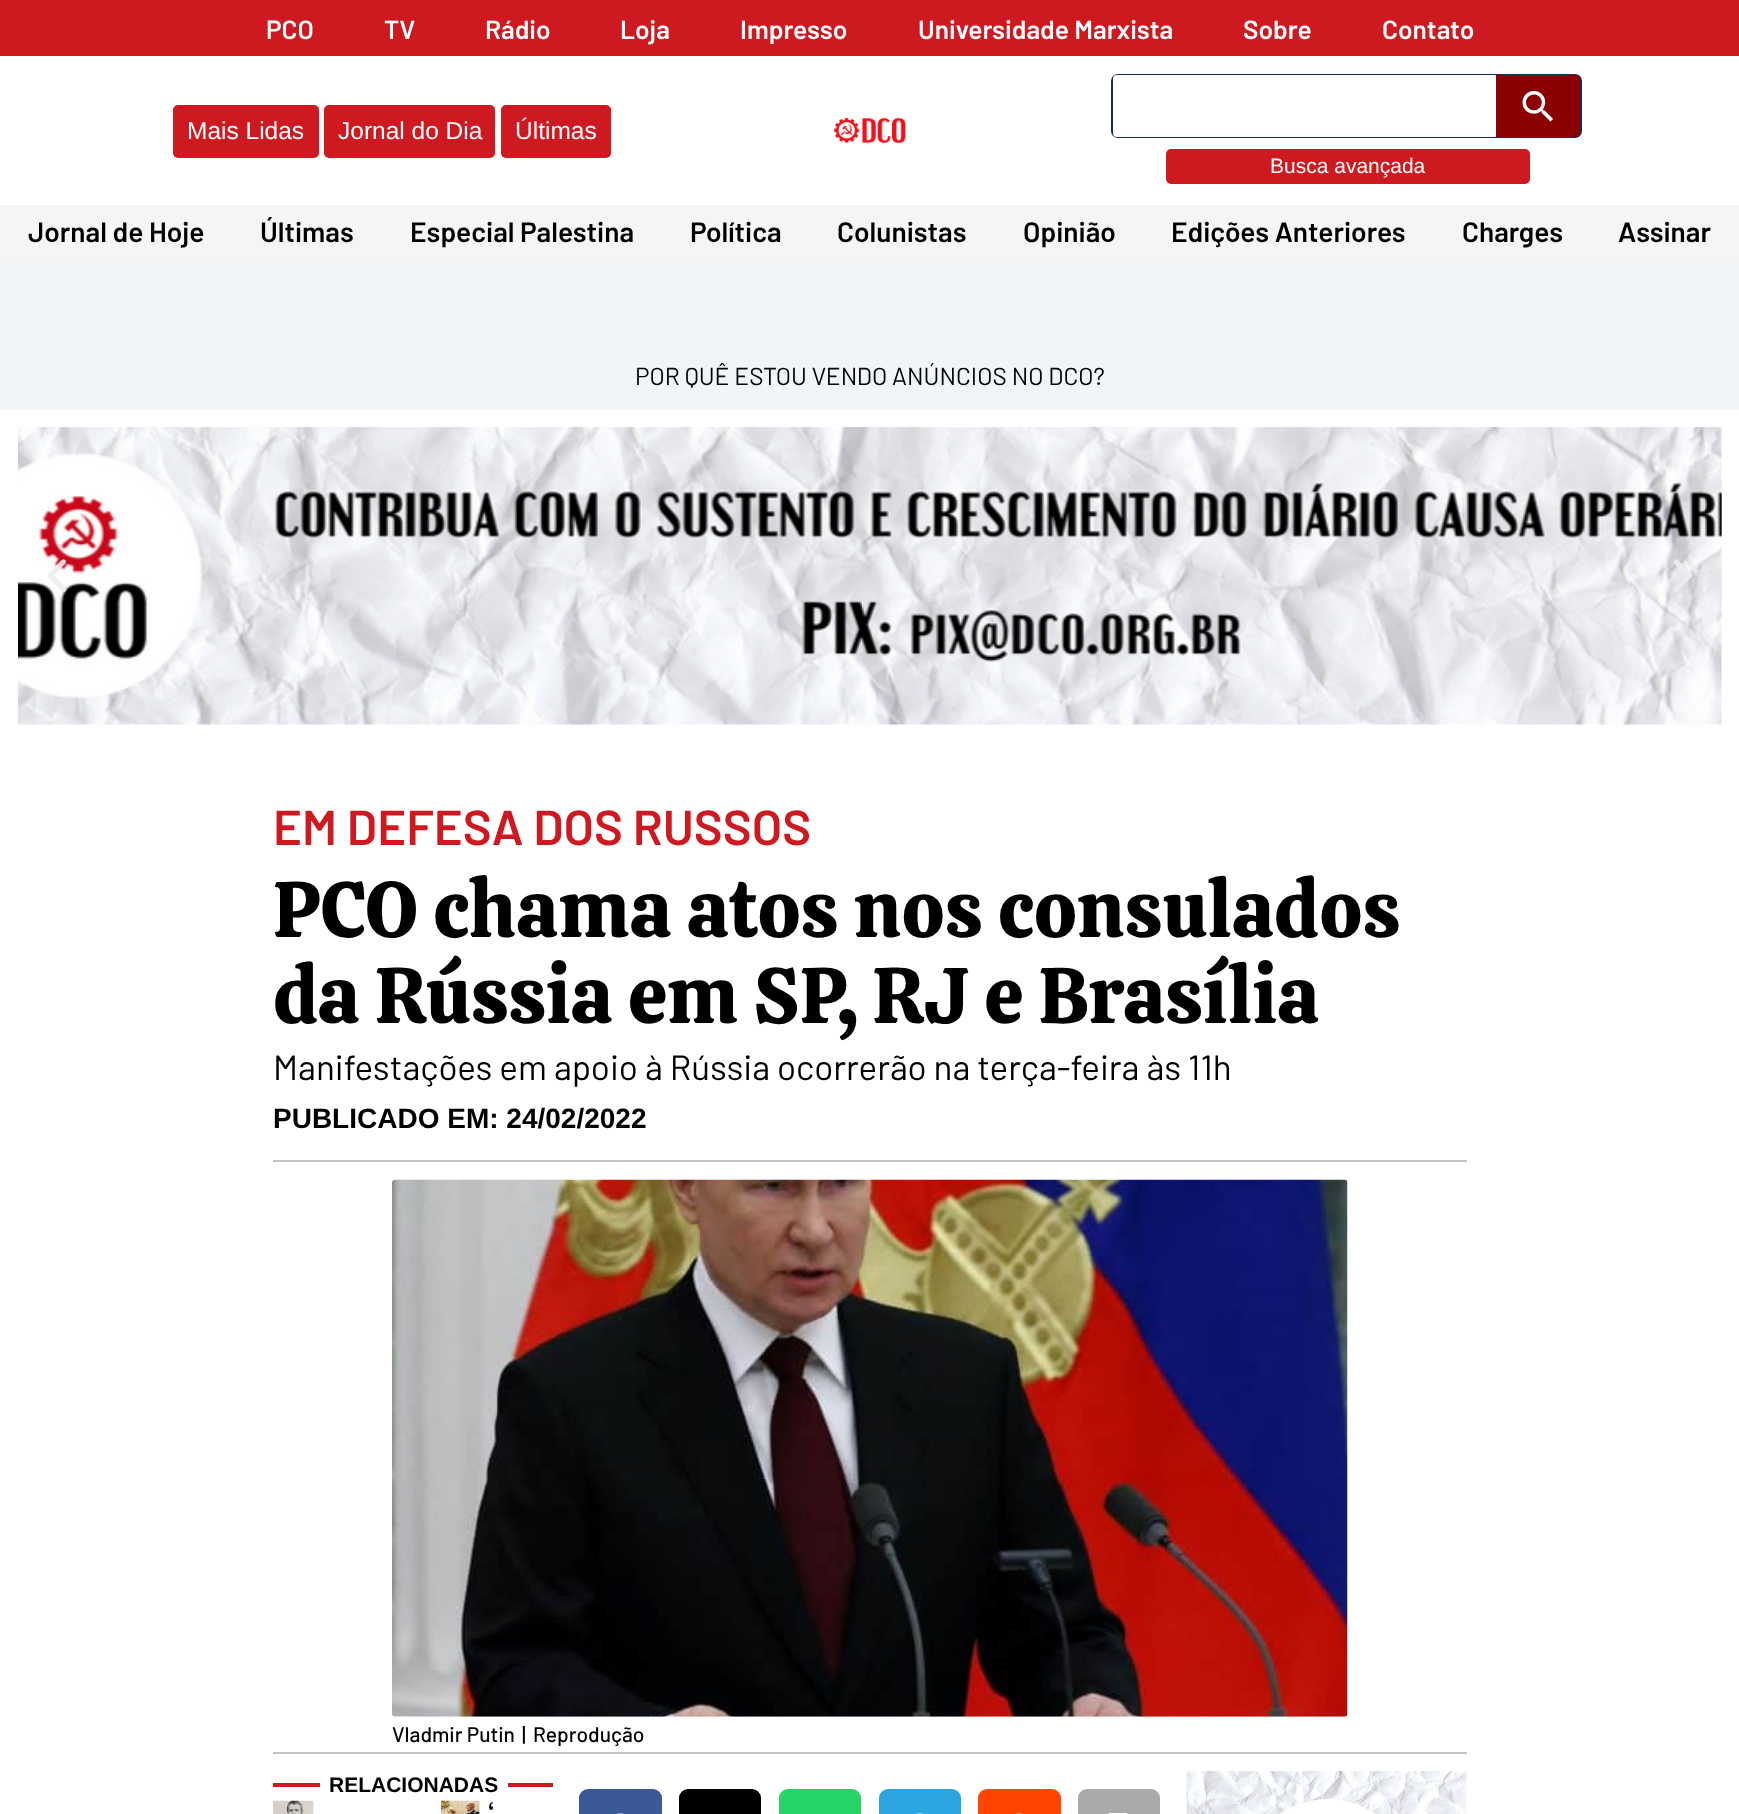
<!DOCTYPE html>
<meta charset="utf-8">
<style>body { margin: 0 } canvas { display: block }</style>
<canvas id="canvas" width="1739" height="1814"></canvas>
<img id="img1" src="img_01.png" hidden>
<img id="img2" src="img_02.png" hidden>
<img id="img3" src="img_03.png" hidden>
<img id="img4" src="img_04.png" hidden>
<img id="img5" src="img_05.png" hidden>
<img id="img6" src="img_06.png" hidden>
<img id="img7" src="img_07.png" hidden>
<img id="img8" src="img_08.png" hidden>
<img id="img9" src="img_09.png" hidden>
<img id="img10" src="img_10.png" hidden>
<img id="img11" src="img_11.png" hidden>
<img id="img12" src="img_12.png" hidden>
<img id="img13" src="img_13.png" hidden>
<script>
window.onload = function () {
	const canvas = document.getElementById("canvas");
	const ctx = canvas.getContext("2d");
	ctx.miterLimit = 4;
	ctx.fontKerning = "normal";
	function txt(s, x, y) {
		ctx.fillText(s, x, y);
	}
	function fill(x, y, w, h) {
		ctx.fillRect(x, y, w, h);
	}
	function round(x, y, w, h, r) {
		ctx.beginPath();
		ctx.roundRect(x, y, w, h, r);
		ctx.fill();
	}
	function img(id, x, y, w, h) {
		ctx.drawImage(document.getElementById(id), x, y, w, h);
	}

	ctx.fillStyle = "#FFFFFF";
	fill(0, 0, 1739, 1814);
	ctx.fillStyle = "#CE1920";
	fill(0, 0, 1739, 56);
	round(173, 105, 146, 53, 5);
	round(324, 105, 171, 53, 5);
	round(501, 105, 110, 53, 5);
	img("img1", 834, 117, 72, 27);
	ctx.beginPath();
	ctx.roundRect(1112, 75, 469, 62, 6);
	ctx.strokeStyle = "#142D5C";
	ctx.lineWidth = 2;
	ctx.stroke();
	ctx.fillStyle = "#FFFFFF";
	ctx.beginPath();
	ctx.roundRect(1113, 75, 383, 62, [4, 0, 0, 4]);
	ctx.fill();
	ctx.fillStyle = "#8B0000";
	ctx.beginPath();
	ctx.roundRect(1496, 75, 84, 62, [0, 4, 4, 0]);
	ctx.fill();
	img("img2", 1522, 91, 31, 31);
	ctx.fillStyle = "#CE1920";
	round(1166, 149, 364, 35, 5);
	ctx.fillStyle = "#F5F5F5";
	fill(0, 205, 1739, 56);
	ctx.fillStyle = "#F2F5F7";
	fill(0, 261, 1739, 149);
	img("img3", 18, 427, 1704, 298);
	img("img4", 48, 559, 19, 34);
	img("img5", 1673, 559, 19, 33);
	ctx.fillStyle = "#C3C3C3";
	fill(273, 1160, 1194, 2);
	img("img6", 392, 1179, 956, 538);
	fill(273, 1752, 1194, 2);
	ctx.fillStyle = "#CE1920";
	fill(273, 1783, 47, 4);
	fill(508, 1783, 45, 4);
	img("img7", 273, 1800, 41, 14);
	img("img8", 440, 1800, 40, 14);
	ctx.fillStyle = "#3B5998";
	round(579, 1789, 83, 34, 9);
	img("img9", 617, 1813, 7, 1);
	ctx.fillStyle = "#000000";
	round(679, 1789, 82, 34, 9);
	ctx.fillStyle = "#25D366";
	round(779, 1789, 82, 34, 9);
	ctx.fillStyle = "#2CA5E0";
	round(879, 1789, 82, 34, 9);
	img("img10", 916, 1813, 7, 1);
	ctx.fillStyle = "#FF4500";
	round(978, 1789, 83, 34, 9);
	img("img11", 1016, 1813, 7, 1);
	ctx.fillStyle = "#AAAAAA";
	round(1078, 1789, 82, 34, 9);
	img("img12", 1108, 1813, 20, 1);
	img("img13", 1186, 1771, 281, 43);
	ctx.font = "600 26.25px Barlow";
	ctx.fillStyle = "#FFFFFF";
	txt("PCO", 266, 39);
	txt("TV", 384, 39);
	txt("Rádio", 485, 39);
	txt("Loja", 620, 39);
	txt("Impresso", 740, 39);
	txt("Universidade Marxista", 918, 39);
	txt("Sobre", 1243, 39);
	txt("Contato", 1382, 39);
	ctx.font = "24.5px Liberation Sans";
	txt("Mais Lidas", 187, 139);
	txt("Jornal do Dia", 338, 139);
	txt("Últimas", 515, 139);
	ctx.font = "21px Liberation Sans";
	txt("Busca avançada", 1270, 173);
	ctx.font = "600 28px Barlow";
	ctx.fillStyle = "#000000";
	txt("Jornal de Hoje", 28, 242);
	txt("Últimas", 260, 242);
	txt("Especial Palestina", 410, 242);
	txt("Política", 690, 242);
	txt("Colunistas", 837, 242);
	txt("Opinião", 1023, 242);
	txt("Edições Anteriores", 1171, 242);
	txt("Charges", 1462, 242);
	txt("Assinar", 1618, 242);
	ctx.font = "24.5px Barlow";
	txt("POR QUÊ ESTOU VENDO ANÚNCIOS NO DCO?", 635, 385);
	ctx.font = "600 49px Barlow";
	ctx.fillStyle = "#CE1920";
	txt("EM DEFESA DOS RUSSOS", 273, 845);
	ctx.font = "78.75px Calistoga";
	ctx.fillStyle = "#000000";
	txt("PCO chama atos nos consulados", 273, 937);
	txt("da Rússia em SP, RJ e Brasília", 273, 1023);
	ctx.font = "35px Barlow";
	txt("Manifestações em apoio à Rússia ocorrerão na terça-feira às 11h", 273, 1080);
	ctx.font = "bold 28px Liberation Sans";
	txt("PUBLICADO EM: 24/02/2022", 273, 1128);
	ctx.font = "500 21px Barlow";
	txt("Vladmir Putin", 392, 1742);
	txt("|", 522, 1742);
	txt("Reprodução", 533, 1742);
	ctx.font = "bold 21px Liberation Sans";
	txt("RELACIONADAS", 329, 1792);
	ctx.font = "21px Calistoga";
	txt("‘", 488, 1819);
};
</script>
